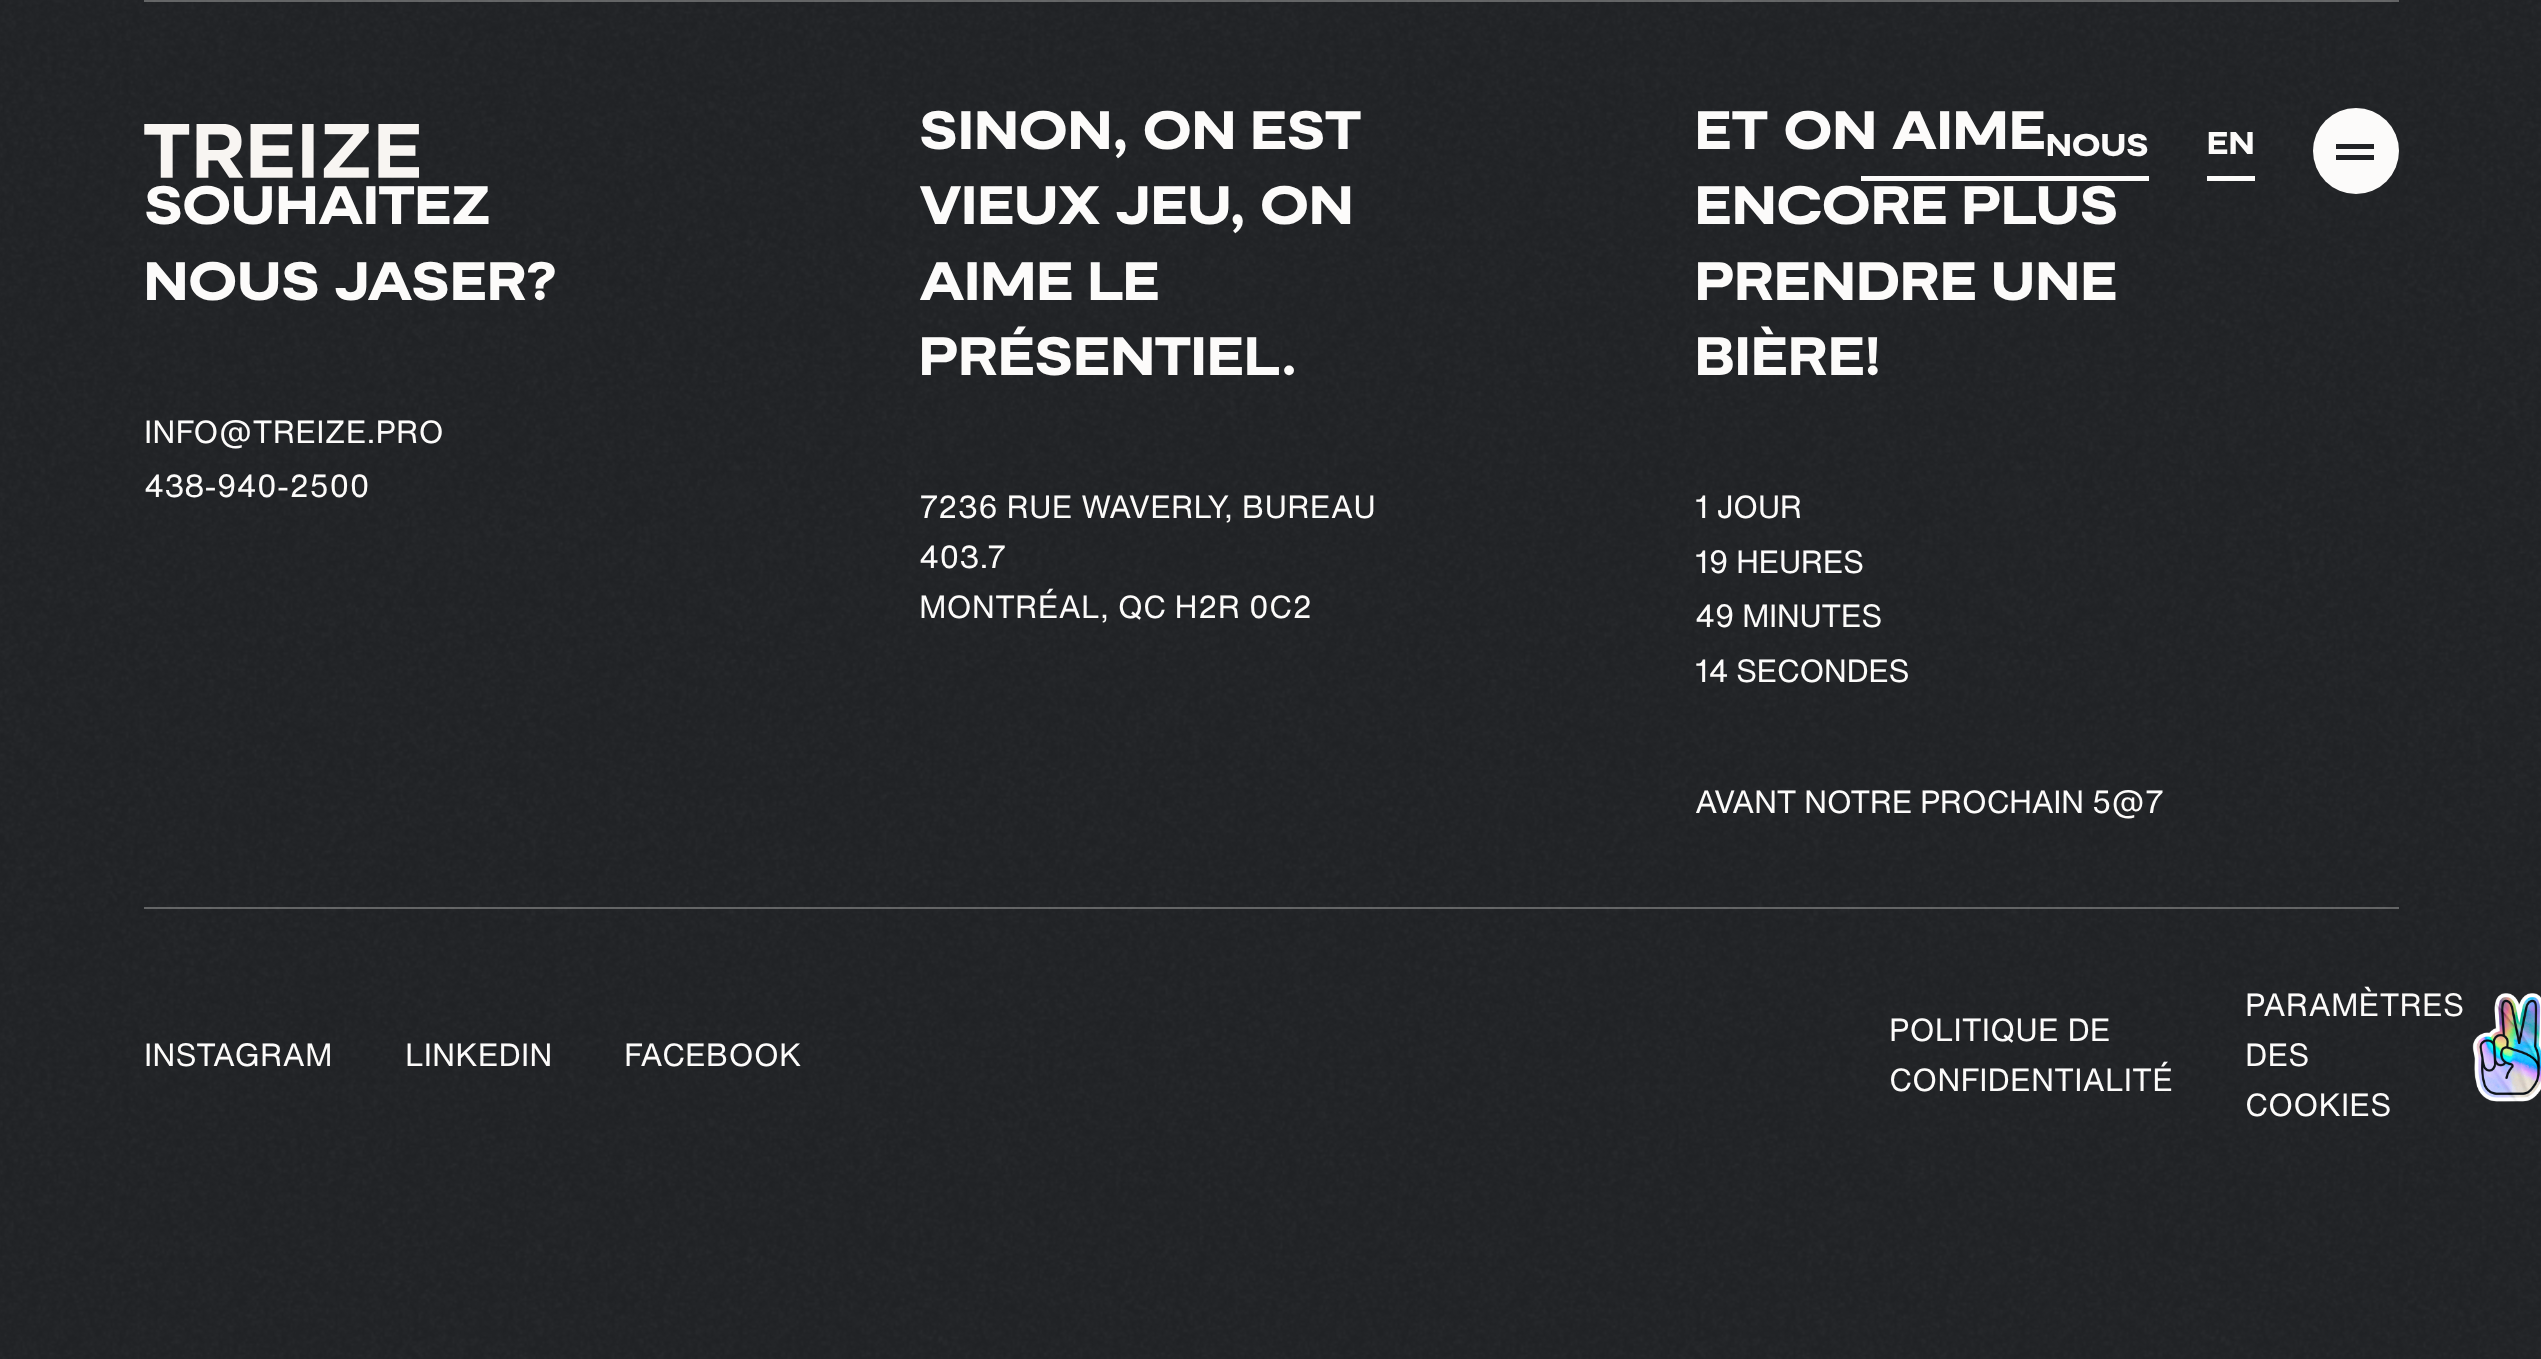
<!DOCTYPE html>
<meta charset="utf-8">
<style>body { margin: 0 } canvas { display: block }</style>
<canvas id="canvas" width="2541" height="1359"></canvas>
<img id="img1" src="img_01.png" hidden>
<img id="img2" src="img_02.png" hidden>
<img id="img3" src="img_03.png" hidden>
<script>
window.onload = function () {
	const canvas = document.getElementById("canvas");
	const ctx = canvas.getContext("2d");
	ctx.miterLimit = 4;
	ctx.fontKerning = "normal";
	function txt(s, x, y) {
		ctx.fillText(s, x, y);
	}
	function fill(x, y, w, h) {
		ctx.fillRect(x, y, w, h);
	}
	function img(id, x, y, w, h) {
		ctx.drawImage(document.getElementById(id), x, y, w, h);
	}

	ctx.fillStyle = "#212326";
	fill(0, 0, 2541, 1359);
	img("img1", 0, 0, 2541, 1359);
	ctx.fillStyle = "rgba(252, 251, 250, 0.3)";
	fill(144, 0, 2255, 2);
	fill(144, 907, 2255, 2);
	img("img2", 2472, 993, 69, 109);
	img("img3", 144, 124, 275, 54);
	ctx.fillStyle = "#FCFBFA";
	fill(1861, 176, 288, 5);
	fill(2207, 176, 48, 5);
	ctx.beginPath();
	ctx.arc(2356, 151, 43, 0, Math.PI * 2);
	ctx.fill();
	ctx.fillStyle = "#212326";
	fill(2336, 144, 38, 5);
	fill(2336, 155, 38, 5);
	ctx.font = "900 54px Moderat";
	ctx.fillStyle = "#FCFBFA";
	txt("SOUHAITEZ", 144, 224);
	txt("NOUS JASER?", 144, 300);
	ctx.font = "31.5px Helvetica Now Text";
	txt("INFO@TREIZE.PRO", 144, 443);
	txt("438-940-2500", 144, 497);
	ctx.font = "900 54px Moderat";
	txt("SINON, ON EST", 919, 149);
	txt("VIEUX JEU, ON", 919, 224);
	txt("AIME LE", 919, 300);
	txt("PRÉSENTIEL.", 919, 375);
	ctx.font = "31.5px Helvetica Now Text";
	txt("7236 RUE WAVERLY, BUREAU", 919, 518);
	txt("403.7", 919, 568);
	txt("MONTRÉAL, QC H2R 0C2", 919, 618);
	ctx.font = "900 54px Moderat";
	txt("ET ON AIME", 1695, 149);
	txt("ENCORE PLUS", 1695, 224);
	txt("PRENDRE UNE", 1695, 300);
	txt("BIÈRE!", 1695, 375);
	ctx.letterSpacing = "-0.6px";
	ctx.font = "31.5px Helvetica Now Text";
	txt("1 JOUR", 1695, 518);
	txt("19 HEURES", 1695, 573);
	txt("49 MINUTES", 1695, 627);
	txt("14 SECONDES", 1695, 682);
	txt("AVANT NOTRE PROCHAIN 5@7", 1695, 813);
	ctx.letterSpacing = "0px";
	txt("INSTAGRAM", 144, 1066);
	txt("LINKEDIN", 405, 1066);
	txt("FACEBOOK", 624, 1066);
	txt("POLITIQUE DE", 1889, 1041);
	txt("CONFIDENTIALITÉ", 1889, 1091);
	txt("PARAMÈTRES", 2245, 1016);
	txt("DES", 2245, 1066);
	txt("COOKIES", 2245, 1116);
	ctx.font = "900 31.5px Moderat";
	txt("NOUS", 2046, 156);
	txt("EN", 2207, 154);
};
</script>
